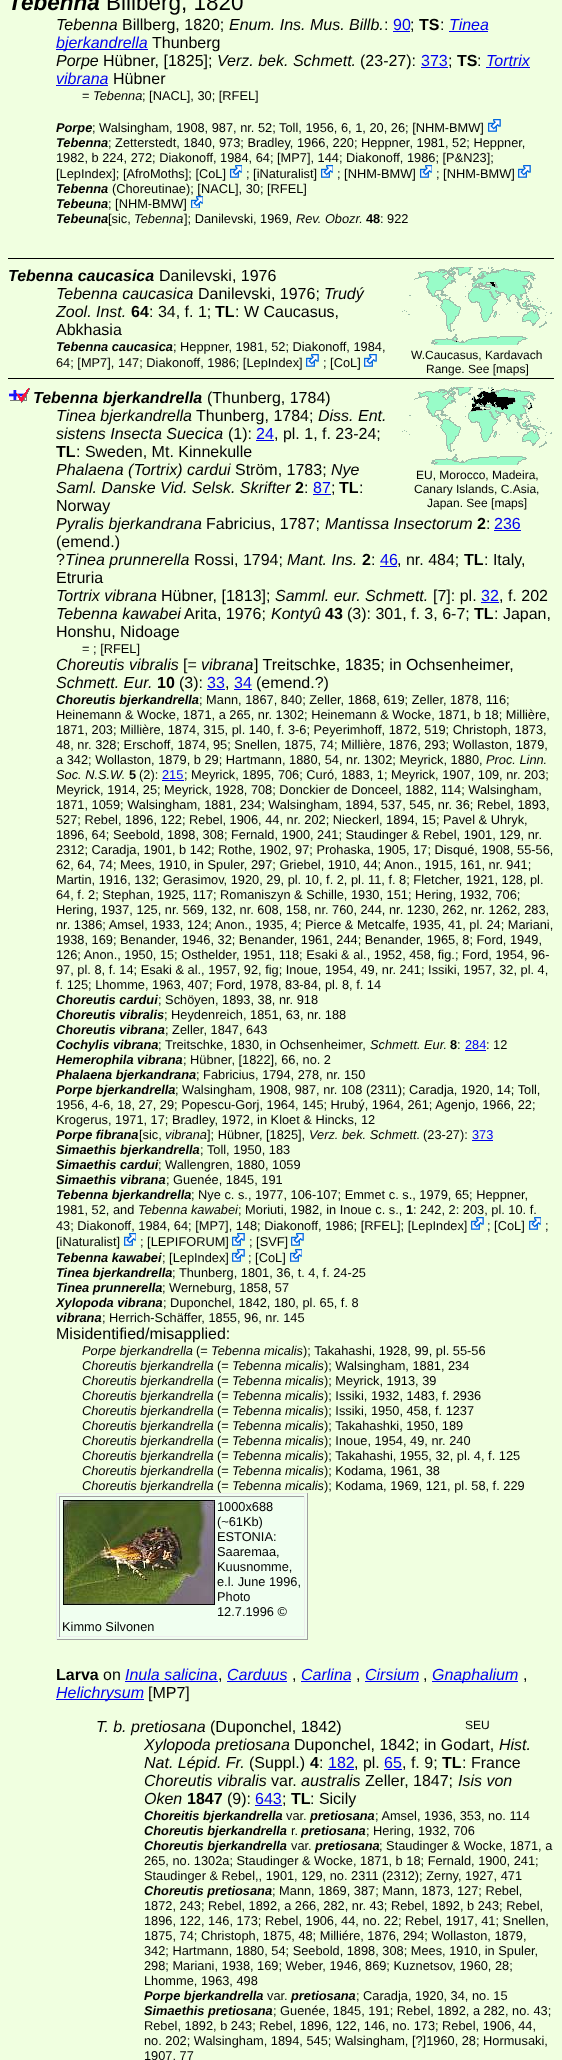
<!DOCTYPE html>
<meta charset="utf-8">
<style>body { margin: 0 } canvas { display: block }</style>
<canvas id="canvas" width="562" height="2060"></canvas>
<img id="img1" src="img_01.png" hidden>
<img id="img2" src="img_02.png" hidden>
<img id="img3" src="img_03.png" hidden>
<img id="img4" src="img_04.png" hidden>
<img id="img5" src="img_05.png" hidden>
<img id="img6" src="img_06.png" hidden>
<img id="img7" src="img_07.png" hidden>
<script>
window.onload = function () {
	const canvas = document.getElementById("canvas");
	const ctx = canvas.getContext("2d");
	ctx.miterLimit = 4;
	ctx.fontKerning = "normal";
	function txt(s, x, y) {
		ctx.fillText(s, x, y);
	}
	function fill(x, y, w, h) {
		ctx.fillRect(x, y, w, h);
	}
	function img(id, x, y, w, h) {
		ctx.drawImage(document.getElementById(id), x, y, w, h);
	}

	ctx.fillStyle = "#F0FFE0";
	fill(0, 0, 562, 2060);
	ctx.fillStyle = "#0000EE";
	fill(393, 31, 17, 1);
	fill(449, 31, 39, 1);
	fill(56, 49, 92, 1);
	fill(421, 67, 27, 1);
	fill(486, 67, 44, 1);
	fill(56, 85, 52, 1);
	img("img1", 488, 119, 13, 13);
	img("img2", 230, 165, 12, 13);
	img("img2", 321, 165, 12, 13);
	img("img2", 420, 165, 12, 13);
	img("img1", 518, 165, 13, 13);
	img("img3", 191, 196, 12, 12);
	ctx.fillStyle = "#000000";
	fill(8, 258, 546, 1);
	img("img1", 306, 354, 13, 13);
	img("img1", 364, 354, 13, 13);
	img("img4", 402, 267, 150, 78);
	fill(8, 378, 546, 1);
	img("img5", 9, 388, 21, 15);
	ctx.fillStyle = "#0000EE";
	fill(256, 440, 18, 1);
	fill(313, 494, 18, 1);
	fill(494, 530, 27, 1);
	fill(380, 566, 17, 1);
	fill(481, 602, 18, 1);
	fill(207, 689, 18, 1);
	fill(234, 689, 18, 1);
	img("img6", 402, 387, 150, 78);
	fill(162, 780, 22, 1);
	fill(465, 1050, 21, 1);
	fill(472, 1140, 21, 1);
	img("img1", 471, 1217, 13, 13);
	img("img2", 529, 1217, 12, 13);
	img("img2", 124, 1233, 12, 13);
	img("img1", 232, 1233, 13, 13);
	img("img1", 291, 1233, 13, 13);
	img("img1", 232, 1249, 13, 13);
	img("img2", 290, 1249, 12, 13);
	ctx.fillStyle = "#F0FFF0";
	fill(57, 1494, 250, 145);
	ctx.fillStyle = "#EEEEEE";
	fill(56, 1493, 252, 1);
	ctx.fillStyle = "#9F9F9F";
	fill(307, 1493, 1, 147);
	fill(56, 1639, 252, 1);
	ctx.fillStyle = "#EEEEEE";
	fill(56, 1493, 1, 147);
	ctx.fillStyle = "#9F9F9F";
	fill(59, 1496, 246, 1);
	ctx.fillStyle = "#EEEEEE";
	fill(304, 1496, 1, 141);
	fill(59, 1636, 246, 1);
	ctx.fillStyle = "#9F9F9F";
	fill(59, 1496, 1, 141);
	img("img7", 63, 1500, 152, 105);
	ctx.fillStyle = "#0000EE";
	fill(125, 1681, 93, 1);
	fill(227, 1681, 60, 1);
	fill(301, 1681, 50, 1);
	fill(365, 1681, 54, 1);
	fill(432, 1681, 86, 1);
	fill(56, 1699, 88, 1);
	fill(328, 1769, 26, 1);
	fill(384, 1769, 18, 1);
	fill(255, 1805, 27, 1);
	ctx.font = "italic bold 22.5px Liberation Sans";
	ctx.fillStyle = "#000000";
	txt("Tebenna", 8, 10);
	ctx.font = "22.5px Liberation Sans";
	txt("Billberg, 1820", 106, 10);
	ctx.font = "italic 16px Liberation Sans";
	txt("Tebenna", 56, 30);
	ctx.font = "16px Liberation Sans";
	txt("Billberg, 1820;", 122, 30);
	ctx.font = "italic 16px Liberation Sans";
	txt("Enum. Ins. Mus. Billb.", 229, 30);
	ctx.font = "16px Liberation Sans";
	txt(":", 384, 30);
	ctx.fillStyle = "#0000EE";
	txt("90", 393, 30);
	ctx.fillStyle = "#000000";
	txt(";", 410, 30);
	ctx.font = "bold 16px Liberation Sans";
	txt("TS", 419, 30);
	ctx.font = "16px Liberation Sans";
	txt(":", 440, 30);
	ctx.font = "italic 16px Liberation Sans";
	ctx.fillStyle = "#0000EE";
	txt("Tinea", 449, 30);
	txt("bjerkandrella", 56, 48);
	ctx.font = "16px Liberation Sans";
	ctx.fillStyle = "#000000";
	txt("Thunberg", 152, 48);
	ctx.font = "italic 16px Liberation Sans";
	txt("Porpe", 56, 66);
	ctx.font = "16px Liberation Sans";
	txt("Hübner, [1825];", 103, 66);
	ctx.font = "italic 16px Liberation Sans";
	txt("Verz. bek. Schmett.", 217, 66);
	ctx.font = "16px Liberation Sans";
	txt("(23-27):", 360, 66);
	ctx.fillStyle = "#0000EE";
	txt("373", 421, 66);
	ctx.fillStyle = "#000000";
	txt(";", 448, 66);
	ctx.font = "bold 16px Liberation Sans";
	txt("TS", 457, 66);
	ctx.font = "16px Liberation Sans";
	txt(":", 477, 66);
	ctx.font = "italic 16px Liberation Sans";
	ctx.fillStyle = "#0000EE";
	txt("Tortrix", 486, 66);
	txt("vibrana", 56, 84);
	ctx.font = "16px Liberation Sans";
	ctx.fillStyle = "#000000";
	txt("Hübner", 113, 84);
	ctx.font = "12.8px Liberation Sans";
	txt("=", 82, 100);
	ctx.font = "italic 12.8px Liberation Sans";
	txt("Tebenna", 93, 100);
	ctx.font = "12.8px Liberation Sans";
	txt("; [NACL], 30; [RFEL]", 142, 100);
	ctx.font = "italic bold 12.8px Liberation Sans";
	txt("Porpe", 56, 132);
	ctx.font = "12.8px Liberation Sans";
	txt("; Walsingham, 1908, 987, nr. 52; Toll, 1956, 6, 1, 20, 26; [NHM-BMW]", 92, 132);
	ctx.font = "italic bold 12.8px Liberation Sans";
	txt("Tebenna", 56, 147);
	ctx.font = "12.8px Liberation Sans";
	txt("; Zetterstedt, 1840, 973; Bradley, 1966, 220; Heppner, 1981, 52; Heppner,", 108, 147);
	txt("1982, b 224, 272; Diakonoff, 1984, 64; [MP7], 144; Diakonoff, 1986; [P&N23];", 56, 162);
	txt("[LepIndex]; [AfroMoths]; [CoL]", 56, 178);
	txt("; [iNaturalist]", 246, 178);
	txt("; [NHM-BMW]", 337, 178);
	txt("; [NHM-BMW]", 436, 178);
	ctx.font = "italic bold 12.8px Liberation Sans";
	txt("Tebenna", 56, 193);
	ctx.font = "12.8px Liberation Sans";
	txt("(Choreutinae); [NACL], 30; [RFEL]", 112, 193);
	ctx.font = "italic bold 12.8px Liberation Sans";
	txt("Tebeuna", 56, 208);
	ctx.font = "12.8px Liberation Sans";
	txt("; [NHM-BMW]", 108, 208);
	ctx.font = "italic bold 12.8px Liberation Sans";
	txt("Tebeuna", 56, 223);
	ctx.font = "12.8px Liberation Sans";
	txt("[sic,", 108, 223);
	ctx.font = "italic 12.8px Liberation Sans";
	txt("Tebenna", 134, 223);
	ctx.font = "12.8px Liberation Sans";
	txt("]; Danilevski, 1969,", 184, 223);
	ctx.font = "italic 12.8px Liberation Sans";
	txt("Rev. Obozr.", 296, 223);
	ctx.font = "bold 12.8px Liberation Sans";
	txt("48", 366, 223);
	ctx.font = "12.8px Liberation Sans";
	txt(": 922", 380, 223);
	ctx.font = "italic bold 16px Liberation Sans";
	txt("Tebenna caucasica", 8, 281);
	ctx.font = "16px Liberation Sans";
	txt("Danilevski, 1976", 159, 281);
	ctx.font = "italic 16px Liberation Sans";
	txt("Tebenna caucasica", 56, 299);
	ctx.font = "16px Liberation Sans";
	txt("Danilevski, 1976;", 198, 299);
	ctx.font = "italic 16px Liberation Sans";
	txt("Trudý", 324, 299);
	txt("Zool. Inst.", 56, 317);
	ctx.font = "bold 16px Liberation Sans";
	txt("64", 131, 317);
	ctx.font = "16px Liberation Sans";
	txt(": 34, f. 1;", 149, 317);
	ctx.font = "bold 16px Liberation Sans";
	txt("TL", 215, 317);
	ctx.font = "16px Liberation Sans";
	txt(": W Caucasus,", 235, 317);
	txt("Abkhasia", 56, 335);
	ctx.font = "italic bold 12.8px Liberation Sans";
	txt("Tebenna caucasica", 56, 351);
	ctx.font = "12.8px Liberation Sans";
	txt("; Heppner, 1981, 52; Diakonoff, 1984,", 173, 351);
	txt("64; [MP7], 147; Diakonoff, 1986; [LepIndex]", 56, 367);
	txt("; [CoL]", 323, 367);
	ctx.font = "12px Liberation Sans";
	txt("W.Caucasus, Kardavach", 411, 359);
	txt("Range. See [maps]", 426, 373);
	ctx.font = "italic bold 16px Liberation Sans";
	txt("Tebenna bjerkandrella", 33, 403);
	ctx.font = "16px Liberation Sans";
	txt("(Thunberg, 1784)", 207, 403);
	ctx.font = "italic 16px Liberation Sans";
	txt("Tinea bjerkandrella", 56, 421);
	ctx.font = "16px Liberation Sans";
	txt("Thunberg, 1784;", 196, 421);
	ctx.font = "italic 16px Liberation Sans";
	txt("Diss. Ent.", 318, 421);
	txt("sistens Insecta Suecica", 56, 439);
	ctx.font = "16px Liberation Sans";
	txt("(1):", 228, 439);
	ctx.fillStyle = "#0000EE";
	txt("24", 256, 439);
	ctx.fillStyle = "#000000";
	txt(", pl. 1, f. 23-24;", 274, 439);
	ctx.font = "bold 16px Liberation Sans";
	txt("TL", 56, 457);
	ctx.font = "16px Liberation Sans";
	txt(": Sweden, Mt. Kinnekulle", 76, 457);
	ctx.font = "italic 16px Liberation Sans";
	txt("Phalaena (Tortrix) cardui", 56, 475);
	ctx.font = "16px Liberation Sans";
	txt("Ström, 1783;", 235, 475);
	ctx.font = "italic 16px Liberation Sans";
	txt("Nye", 331, 475);
	txt("Saml. Danske Vid. Selsk. Skrifter", 56, 493);
	ctx.font = "bold 16px Liberation Sans";
	txt("2", 295, 493);
	ctx.font = "16px Liberation Sans";
	txt(":", 304, 493);
	ctx.fillStyle = "#0000EE";
	txt("87", 313, 493);
	ctx.fillStyle = "#000000";
	txt(";", 331, 493);
	ctx.font = "bold 16px Liberation Sans";
	txt("TL", 339, 493);
	ctx.font = "16px Liberation Sans";
	txt(":", 359, 493);
	txt("Norway", 56, 511);
	ctx.font = "italic 16px Liberation Sans";
	txt("Pyralis bjerkandrana", 56, 529);
	ctx.font = "16px Liberation Sans";
	txt("Fabricius, 1787;", 206, 529);
	ctx.font = "italic 16px Liberation Sans";
	txt("Mantissa Insectorum", 325, 529);
	ctx.font = "bold 16px Liberation Sans";
	txt("2", 477, 529);
	ctx.font = "16px Liberation Sans";
	txt(":", 486, 529);
	ctx.fillStyle = "#0000EE";
	txt("236", 494, 529);
	ctx.fillStyle = "#000000";
	txt("(emend.)", 56, 547);
	txt("?", 56, 565);
	ctx.font = "italic 16px Liberation Sans";
	txt("Tinea prunnerella", 65, 565);
	ctx.font = "16px Liberation Sans";
	txt("Rossi, 1794;", 194, 565);
	ctx.font = "italic 16px Liberation Sans";
	txt("Mant. Ins.", 287, 565);
	ctx.font = "bold 16px Liberation Sans";
	txt("2", 362, 565);
	ctx.font = "16px Liberation Sans";
	txt(":", 371, 565);
	ctx.fillStyle = "#0000EE";
	txt("46", 380, 565);
	ctx.fillStyle = "#000000";
	txt(", nr. 484;", 397, 565);
	ctx.font = "bold 16px Liberation Sans";
	txt("TL", 464, 565);
	ctx.font = "16px Liberation Sans";
	txt(": Italy,", 484, 565);
	txt("Etruria", 56, 583);
	ctx.font = "italic 16px Liberation Sans";
	txt("Tortrix vibrana", 56, 601);
	ctx.font = "16px Liberation Sans";
	txt("Hübner, [1813];", 161, 601);
	ctx.font = "italic 16px Liberation Sans";
	txt("Samml. eur. Schmett.", 275, 601);
	ctx.font = "16px Liberation Sans";
	txt("[7]: pl.", 433, 601);
	ctx.fillStyle = "#0000EE";
	txt("32", 481, 601);
	ctx.fillStyle = "#000000";
	txt(", f. 202", 499, 601);
	ctx.font = "italic 16px Liberation Sans";
	txt("Tebenna kawabei", 56, 619);
	ctx.font = "16px Liberation Sans";
	txt("Arita, 1976;", 184, 619);
	ctx.font = "italic 16px Liberation Sans";
	txt("Kontyû", 271, 619);
	ctx.font = "bold 16px Liberation Sans";
	txt("43", 325, 619);
	ctx.font = "16px Liberation Sans";
	txt("(3): 301, f. 3, 6-7;", 347, 619);
	ctx.font = "bold 16px Liberation Sans";
	txt("TL", 474, 619);
	ctx.font = "16px Liberation Sans";
	txt(": Japan,", 494, 619);
	txt("Honshu, Nidoage", 56, 637);
	ctx.font = "12.8px Liberation Sans";
	txt("= ; [RFEL]", 82, 653);
	ctx.font = "italic 16px Liberation Sans";
	txt("Choreutis vibralis", 56, 670);
	ctx.font = "16px Liberation Sans";
	txt("[=", 183, 670);
	ctx.font = "italic 16px Liberation Sans";
	txt("vibrana", 201, 670);
	ctx.font = "16px Liberation Sans";
	txt("] Treitschke, 1835; in Ochsenheimer,", 254, 670);
	ctx.font = "italic 16px Liberation Sans";
	txt("Schmett. Eur.", 56, 688);
	ctx.font = "bold 16px Liberation Sans";
	txt("10", 157, 688);
	ctx.font = "16px Liberation Sans";
	txt("(3):", 179, 688);
	ctx.fillStyle = "#0000EE";
	txt("33", 207, 688);
	ctx.fillStyle = "#000000";
	txt(",", 225, 688);
	ctx.fillStyle = "#0000EE";
	txt("34", 234, 688);
	ctx.fillStyle = "#000000";
	txt("(emend.?)", 256, 688);
	ctx.font = "12px Liberation Sans";
	txt("EU, Morocco, Madeira,", 416, 479);
	txt("Canary Islands, C.Asia,", 414, 493);
	txt("Japan. See [maps]", 427, 507);
	ctx.font = "italic bold 12.8px Liberation Sans";
	txt("Choreutis bjerkandrella", 56, 704);
	ctx.font = "12.8px Liberation Sans";
	txt("; Mann, 1867, 840; Zeller, 1868, 619; Zeller, 1878, 116;", 199, 704);
	txt("Heinemann & Wocke, 1871, a 265, nr. 1302; Heinemann & Wocke, 1871, b 18; Millière,", 56, 719);
	txt("1871, 203; Millière, 1874, 315, pl. 140, f. 3-6; Peyerimhoff, 1872, 519; Christoph, 1873,", 56, 734);
	txt("48, nr. 328; Erschoff, 1874, 95; Snellen, 1875, 74; Millière, 1876, 293; Wollaston, 1879,", 56, 749);
	txt("a 342; Wollaston, 1879, b 29; Hartmann, 1880, 54, nr. 1302; Meyrick, 1880,", 56, 764);
	ctx.font = "italic 12.8px Liberation Sans";
	txt("Proc. Linn.", 486, 764);
	txt("Soc. N.S.W.", 56, 779);
	ctx.font = "bold 12.8px Liberation Sans";
	txt("5", 129, 779);
	ctx.font = "12.8px Liberation Sans";
	txt("(2):", 139, 779);
	ctx.fillStyle = "#0000EE";
	txt("215", 162, 779);
	ctx.fillStyle = "#000000";
	txt("; Meyrick, 1895, 706; Curó, 1883, 1; Meyrick, 1907, 109, nr. 203;", 184, 779);
	txt("Meyrick, 1914, 25; Meyrick, 1928, 708; Donckier de Donceel, 1882, 114; Walsingham,", 56, 794);
	txt("1871, 1059; Walsingham, 1881, 234; Walsingham, 1894, 537, 545, nr. 36; Rebel, 1893,", 56, 809);
	txt("527; Rebel, 1896, 122; Rebel, 1906, 44, nr. 202; Nieckerl, 1894, 15; Pavel & Uhryk,", 56, 824);
	txt("1896, 64; Seebold, 1898, 308; Fernald, 1900, 241; Staudinger & Rebel, 1901, 129, nr.", 56, 839);
	txt("2312; Caradja, 1901, b 142; Rothe, 1902, 97; Prohaska, 1905, 17; Disqué, 1908, 55-56,", 56, 854);
	txt("62, 64, 74; Mees, 1910, in Spuler, 297; Griebel, 1910, 44; Anon., 1915, 161, nr. 941;", 56, 869);
	txt("Martin, 1916, 132; Gerasimov, 1920, 29, pl. 10, f. 2, pl. 11, f. 8; Fletcher, 1921, 128, pl.", 56, 884);
	txt("64, f. 2; Stephan, 1925, 117; Romaniszyn & Schille, 1930, 151; Hering, 1932, 706;", 56, 899);
	txt("Hering, 1937, 125, nr. 569, 132, nr. 608, 158, nr. 760, 244, nr. 1230, 262, nr. 1262, 283,", 56, 914);
	txt("nr. 1386; Amsel, 1933, 124; Anon., 1935, 4; Pierce & Metcalfe, 1935, 41, pl. 24; Mariani,", 56, 929);
	txt("1938, 169; Benander, 1946, 32; Benander, 1961, 244; Benander, 1965, 8; Ford, 1949,", 56, 944);
	txt("126; Anon., 1950, 15; Osthelder, 1951, 118; Esaki & al., 1952, 458, fig.; Ford, 1954, 96-", 56, 959);
	txt("97, pl. 8, f. 14; Esaki & al., 1957, 92, fig; Inoue, 1954, 49, nr. 241; Issiki, 1957, 32, pl. 4,", 56, 974);
	txt("f. 125; Lhomme, 1963, 407; Ford, 1978, 83-84, pl. 8, f. 14", 56, 989);
	ctx.font = "italic bold 12.8px Liberation Sans";
	txt("Choreutis cardui", 56, 1004);
	ctx.font = "12.8px Liberation Sans";
	txt("; Schöyen, 1893, 38, nr. 918", 158, 1004);
	ctx.font = "italic bold 12.8px Liberation Sans";
	txt("Choreutis vibralis", 56, 1019);
	ctx.font = "12.8px Liberation Sans";
	txt("; Heydenreich, 1851, 63, nr. 188", 164, 1019);
	ctx.font = "italic bold 12.8px Liberation Sans";
	txt("Choreutis vibrana", 56, 1034);
	ctx.font = "12.8px Liberation Sans";
	txt("; Zeller, 1847, 643", 165, 1034);
	ctx.font = "italic bold 12.8px Liberation Sans";
	txt("Cochylis vibrana", 56, 1049);
	ctx.font = "12.8px Liberation Sans";
	txt("; Treitschke, 1830, in Ochsenheimer,", 158, 1049);
	ctx.font = "italic 12.8px Liberation Sans";
	txt("Schmett. Eur.", 370, 1049);
	ctx.font = "bold 12.8px Liberation Sans";
	txt("8", 450, 1049);
	ctx.font = "12.8px Liberation Sans";
	txt(":", 457, 1049);
	ctx.fillStyle = "#0000EE";
	txt("284", 465, 1049);
	ctx.fillStyle = "#000000";
	txt(": 12", 486, 1049);
	ctx.font = "italic bold 12.8px Liberation Sans";
	txt("Hemerophila vibrana", 56, 1064);
	ctx.font = "12.8px Liberation Sans";
	txt("; Hübner, [1822], 66, no. 2", 183, 1064);
	ctx.font = "italic bold 12.8px Liberation Sans";
	txt("Phalaena bjerkandrana", 56, 1079);
	ctx.font = "12.8px Liberation Sans";
	txt("; Fabricius, 1794, 278, nr. 150", 196, 1079);
	ctx.font = "italic bold 12.8px Liberation Sans";
	txt("Porpe bjerkandrella", 56, 1094);
	ctx.font = "12.8px Liberation Sans";
	txt("; Walsingham, 1908, 987, nr. 108 (2311); Caradja, 1920, 14; Toll,", 175, 1094);
	txt("1956, 4-6, 18, 27, 29; Popescu-Gorj, 1964, 145; Hrubý, 1964, 261; Agenjo, 1966, 22;", 56, 1109);
	txt("Krogerus, 1971, 17; Bradley, 1972, in Kloet & Hincks, 12", 56, 1124);
	ctx.font = "italic bold 12.8px Liberation Sans";
	txt("Porpe fibrana", 56, 1139);
	ctx.font = "12.8px Liberation Sans";
	txt("[sic,", 139, 1139);
	ctx.font = "italic 12.8px Liberation Sans";
	txt("vibrana", 165, 1139);
	ctx.font = "12.8px Liberation Sans";
	txt("]; Hübner, [1825],", 207, 1139);
	ctx.font = "italic 12.8px Liberation Sans";
	txt("Verz. bek. Schmett.", 309, 1139);
	ctx.font = "12.8px Liberation Sans";
	txt("(23-27):", 423, 1139);
	ctx.fillStyle = "#0000EE";
	txt("373", 472, 1139);
	ctx.font = "italic bold 12.8px Liberation Sans";
	ctx.fillStyle = "#000000";
	txt("Simaethis bjerkandrella", 56, 1154);
	ctx.font = "12.8px Liberation Sans";
	txt("; Toll, 1950, 183", 200, 1154);
	ctx.font = "italic bold 12.8px Liberation Sans";
	txt("Simaethis cardui", 56, 1169);
	ctx.font = "12.8px Liberation Sans";
	txt("; Wallengren, 1880, 1059", 158, 1169);
	ctx.font = "italic bold 12.8px Liberation Sans";
	txt("Simaethis vibrana", 56, 1184);
	ctx.font = "12.8px Liberation Sans";
	txt("; Guenée, 1845, 191", 166, 1184);
	ctx.font = "italic bold 12.8px Liberation Sans";
	txt("Tebenna bjerkandrella", 56, 1199);
	ctx.font = "12.8px Liberation Sans";
	txt("; Nye c. s., 1977, 106-107; Emmet c. s., 1979, 65; Heppner,", 191, 1199);
	txt("1981, 52, and", 56, 1214);
	ctx.font = "italic 12.8px Liberation Sans";
	txt("Tebenna kawabei", 138, 1214);
	ctx.font = "12.8px Liberation Sans";
	txt("; Moriuti, 1982, in Inoue c. s.,", 238, 1214);
	ctx.font = "bold 12.8px Liberation Sans";
	txt("1", 406, 1214);
	ctx.font = "12.8px Liberation Sans";
	txt(": 242, 2: 203, pl. 10. f.", 413, 1214);
	txt("43; Diakonoff, 1984, 64; [MP7], 148; Diakonoff, 1986; [RFEL]; [LepIndex]", 56, 1230);
	txt("; [CoL]", 487, 1230);
	txt(";", 545, 1230);
	txt("[iNaturalist]", 56, 1246);
	txt("; [LEPIFORUM]", 140, 1246);
	txt("; [SVF]", 249, 1246);
	ctx.font = "italic bold 12.8px Liberation Sans";
	txt("Tebenna kawabei", 56, 1262);
	ctx.font = "12.8px Liberation Sans";
	txt("; [LepIndex]", 162, 1262);
	txt("; [CoL]", 248, 1262);
	ctx.font = "italic bold 12.8px Liberation Sans";
	txt("Tinea bjerkandrella", 56, 1277);
	ctx.font = "12.8px Liberation Sans";
	txt("; Thunberg, 1801, 36, t. 4, f. 24-25", 172, 1277);
	ctx.font = "italic bold 12.8px Liberation Sans";
	txt("Tinea prunnerella", 56, 1292);
	ctx.font = "12.8px Liberation Sans";
	txt("; Werneburg, 1858, 57", 162, 1292);
	ctx.font = "italic bold 12.8px Liberation Sans";
	txt("Xylopoda vibrana", 56, 1307);
	ctx.font = "12.8px Liberation Sans";
	txt("; Duponchel, 1842, 180, pl. 65, f. 8", 163, 1307);
	ctx.font = "italic bold 12.8px Liberation Sans";
	txt("vibrana", 56, 1322);
	ctx.font = "12.8px Liberation Sans";
	txt("; Herrich-Schäffer, 1855, 96, nr. 145", 102, 1322);
	ctx.font = "16px Liberation Sans";
	txt("Misidentified/misapplied:", 56, 1339);
	ctx.font = "italic 12.8px Liberation Sans";
	txt("Porpe bjerkandrella", 82, 1355);
	ctx.font = "12.8px Liberation Sans";
	txt("(=", 196, 1355);
	ctx.font = "italic 12.8px Liberation Sans";
	txt("Tebenna micalis", 211, 1355);
	ctx.font = "12.8px Liberation Sans";
	txt("); Takahashi, 1928, 99, pl. 55-56", 303, 1355);
	ctx.font = "italic 12.8px Liberation Sans";
	txt("Choreutis bjerkandrella", 82, 1370);
	ctx.font = "12.8px Liberation Sans";
	txt("(=", 217, 1370);
	ctx.font = "italic 12.8px Liberation Sans";
	txt("Tebenna micalis", 232, 1370);
	ctx.font = "12.8px Liberation Sans";
	txt("); Walsingham, 1881, 234", 324, 1370);
	ctx.font = "italic 12.8px Liberation Sans";
	txt("Choreutis bjerkandrella", 82, 1385);
	ctx.font = "12.8px Liberation Sans";
	txt("(=", 217, 1385);
	ctx.font = "italic 12.8px Liberation Sans";
	txt("Tebenna micalis", 232, 1385);
	ctx.font = "12.8px Liberation Sans";
	txt("); Meyrick, 1913, 39", 324, 1385);
	ctx.font = "italic 12.8px Liberation Sans";
	txt("Choreutis bjerkandrella", 82, 1400);
	ctx.font = "12.8px Liberation Sans";
	txt("(=", 217, 1400);
	ctx.font = "italic 12.8px Liberation Sans";
	txt("Tebenna micalis", 232, 1400);
	ctx.font = "12.8px Liberation Sans";
	txt("); Issiki, 1932, 1483, f. 2936", 324, 1400);
	ctx.font = "italic 12.8px Liberation Sans";
	txt("Choreutis bjerkandrella", 82, 1415);
	ctx.font = "12.8px Liberation Sans";
	txt("(=", 217, 1415);
	ctx.font = "italic 12.8px Liberation Sans";
	txt("Tebenna micalis", 232, 1415);
	ctx.font = "12.8px Liberation Sans";
	txt("); Issiki, 1950, 458, f. 1237", 324, 1415);
	ctx.font = "italic 12.8px Liberation Sans";
	txt("Choreutis bjerkandrella", 82, 1430);
	ctx.font = "12.8px Liberation Sans";
	txt("(=", 217, 1430);
	ctx.font = "italic 12.8px Liberation Sans";
	txt("Tebenna micalis", 232, 1430);
	ctx.font = "12.8px Liberation Sans";
	txt("); Takahashki, 1950, 189", 324, 1430);
	ctx.font = "italic 12.8px Liberation Sans";
	txt("Choreutis bjerkandrella", 82, 1445);
	ctx.font = "12.8px Liberation Sans";
	txt("(=", 217, 1445);
	ctx.font = "italic 12.8px Liberation Sans";
	txt("Tebenna micalis", 232, 1445);
	ctx.font = "12.8px Liberation Sans";
	txt("); Inoue, 1954, 49, nr. 240", 324, 1445);
	ctx.font = "italic 12.8px Liberation Sans";
	txt("Choreutis bjerkandrella", 82, 1460);
	ctx.font = "12.8px Liberation Sans";
	txt("(=", 217, 1460);
	ctx.font = "italic 12.8px Liberation Sans";
	txt("Tebenna micalis", 232, 1460);
	ctx.font = "12.8px Liberation Sans";
	txt("); Takahashi, 1955, 32, pl. 4, f. 125", 324, 1460);
	ctx.font = "italic 12.8px Liberation Sans";
	txt("Choreutis bjerkandrella", 82, 1475);
	ctx.font = "12.8px Liberation Sans";
	txt("(=", 217, 1475);
	ctx.font = "italic 12.8px Liberation Sans";
	txt("Tebenna micalis", 232, 1475);
	ctx.font = "12.8px Liberation Sans";
	txt("); Kodama, 1961, 38", 324, 1475);
	ctx.font = "italic 12.8px Liberation Sans";
	txt("Choreutis bjerkandrella", 82, 1490);
	ctx.font = "12.8px Liberation Sans";
	txt("(=", 217, 1490);
	ctx.font = "italic 12.8px Liberation Sans";
	txt("Tebenna micalis", 232, 1490);
	ctx.font = "12.8px Liberation Sans";
	txt("); Kodama, 1969, 121, pl. 58, f. 229", 324, 1490);
	txt("1000x688", 217, 1511);
	txt("(~61Kb)", 217, 1526);
	txt("ESTONIA:", 217, 1541);
	txt("Saaremaa,", 217, 1556);
	txt("Kuusnomme,", 217, 1571);
	txt("e.l. June 1996,", 217, 1586);
	txt("Photo", 217, 1601);
	txt("12.7.1996 ©", 217, 1616);
	txt("Kimmo Silvonen", 62, 1631);
	ctx.font = "bold 16px Liberation Sans";
	txt("Larva", 56, 1680);
	ctx.font = "16px Liberation Sans";
	txt("on", 103, 1680);
	ctx.font = "italic 16px Liberation Sans";
	ctx.fillStyle = "#0000EE";
	txt("Inula salicina", 125, 1680);
	ctx.font = "16px Liberation Sans";
	ctx.fillStyle = "#000000";
	txt(",", 218, 1680);
	ctx.font = "italic 16px Liberation Sans";
	ctx.fillStyle = "#0000EE";
	txt("Carduus", 227, 1680);
	ctx.font = "16px Liberation Sans";
	ctx.fillStyle = "#000000";
	txt(",", 292, 1680);
	ctx.font = "italic 16px Liberation Sans";
	ctx.fillStyle = "#0000EE";
	txt("Carlina", 301, 1680);
	ctx.font = "16px Liberation Sans";
	ctx.fillStyle = "#000000";
	txt(",", 356, 1680);
	ctx.font = "italic 16px Liberation Sans";
	ctx.fillStyle = "#0000EE";
	txt("Cirsium", 365, 1680);
	ctx.font = "16px Liberation Sans";
	ctx.fillStyle = "#000000";
	txt(",", 423, 1680);
	ctx.font = "italic 16px Liberation Sans";
	ctx.fillStyle = "#0000EE";
	txt("Gnaphalium", 432, 1680);
	ctx.font = "16px Liberation Sans";
	ctx.fillStyle = "#000000";
	txt(",", 523, 1680);
	ctx.font = "italic 16px Liberation Sans";
	ctx.fillStyle = "#0000EE";
	txt("Helichrysum", 56, 1698);
	ctx.font = "16px Liberation Sans";
	ctx.fillStyle = "#000000";
	txt("[MP7]", 148, 1698);
	ctx.font = "italic 16px Liberation Sans";
	txt("T. b. pretiosana", 96, 1732);
	ctx.font = "16px Liberation Sans";
	txt("(Duponchel, 1842)", 210, 1732);
	ctx.font = "12px Liberation Sans";
	txt("SEU", 465, 1729);
	ctx.font = "italic 16px Liberation Sans";
	txt("Xylopoda pretiosana", 144, 1750);
	ctx.font = "16px Liberation Sans";
	txt("Duponchel, 1842; in Godart,", 294, 1750);
	ctx.font = "italic 16px Liberation Sans";
	txt("Hist.", 499, 1750);
	txt("Nat. Lépid. Fr.", 144, 1768);
	ctx.font = "16px Liberation Sans";
	txt("(Suppl.)", 249, 1768);
	ctx.font = "bold 16px Liberation Sans";
	txt("4", 310, 1768);
	ctx.font = "16px Liberation Sans";
	txt(":", 319, 1768);
	ctx.fillStyle = "#0000EE";
	txt("182", 328, 1768);
	ctx.fillStyle = "#000000";
	txt(", pl.", 354, 1768);
	ctx.fillStyle = "#0000EE";
	txt("65", 384, 1768);
	ctx.fillStyle = "#000000";
	txt(", f. 9;", 402, 1768);
	ctx.font = "bold 16px Liberation Sans";
	txt("TL", 442, 1768);
	ctx.font = "16px Liberation Sans";
	txt(": France", 462, 1768);
	ctx.font = "italic 16px Liberation Sans";
	txt("Choreutis vibralis", 144, 1786);
	ctx.font = "16px Liberation Sans";
	txt("var.", 271, 1786);
	ctx.font = "italic 16px Liberation Sans";
	txt("australis", 301, 1786);
	ctx.font = "16px Liberation Sans";
	txt("Zeller, 1847;", 365, 1786);
	ctx.font = "italic 16px Liberation Sans";
	txt("Isis von", 458, 1786);
	txt("Oken", 144, 1804);
	ctx.font = "bold 16px Liberation Sans";
	txt("1847", 187, 1804);
	ctx.font = "16px Liberation Sans";
	txt("(9):", 227, 1804);
	ctx.fillStyle = "#0000EE";
	txt("643", 255, 1804);
	ctx.fillStyle = "#000000";
	txt(";", 282, 1804);
	ctx.font = "bold 16px Liberation Sans";
	txt("TL", 291, 1804);
	ctx.font = "16px Liberation Sans";
	txt(": Sicily", 310, 1804);
	ctx.font = "italic bold 12.8px Liberation Sans";
	txt("Choreitis bjerkandrella", 144, 1820);
	ctx.font = "12.8px Liberation Sans";
	txt("var.", 286, 1820);
	ctx.font = "italic bold 12.8px Liberation Sans";
	txt("pretiosana", 310, 1820);
	ctx.font = "12.8px Liberation Sans";
	txt("; Amsel, 1936, 353, no. 114", 375, 1820);
	ctx.font = "italic bold 12.8px Liberation Sans";
	txt("Choreutis bjerkandrella", 144, 1835);
	ctx.font = "12.8px Liberation Sans";
	txt("r.", 291, 1835);
	ctx.font = "italic bold 12.8px Liberation Sans";
	txt("pretiosana", 301, 1835);
	ctx.font = "12.8px Liberation Sans";
	txt("; Hering, 1932, 706", 366, 1835);
	ctx.font = "italic bold 12.8px Liberation Sans";
	txt("Choreutis bjerkandrella", 144, 1850);
	ctx.font = "12.8px Liberation Sans";
	txt("var.", 291, 1850);
	ctx.font = "italic bold 12.8px Liberation Sans";
	txt("pretiosana", 315, 1850);
	ctx.font = "12.8px Liberation Sans";
	txt("; Staudinger & Wocke, 1871, a", 379, 1850);
	txt("265, no. 1302a; Staudinger & Wocke, 1871, b 18; Fernald, 1900, 241;", 144, 1865);
	txt("Staudinger & Rebel,, 1901, 129, no. 2311 (2312); Zerny, 1927, 471", 144, 1880);
	ctx.font = "italic bold 12.8px Liberation Sans";
	txt("Choreutis pretiosana", 144, 1895);
	ctx.font = "12.8px Liberation Sans";
	txt("; Mann, 1869, 387; Mann, 1873, 127; Rebel,", 272, 1895);
	txt("1872, 243; Rebel, 1892, a 266, 282, nr. 43; Rebel, 1892, b 243; Rebel,", 144, 1910);
	txt("1896, 122, 146, 173; Rebel, 1906, 44, no. 22; Rebel, 1917, 41; Snellen,", 144, 1925);
	txt("1875, 74; Christoph, 1875, 48; Milliére, 1876, 294; Wollaston, 1879,", 144, 1940);
	txt("342; Hartmann, 1880, 54; Seebold, 1898, 308; Mees, 1910, in Spuler,", 144, 1955);
	txt("298; Mariani, 1938, 169; Weber, 1946, 869; Kuznetsov, 1960, 28;", 144, 1970);
	txt("Lhomme, 1963, 498", 144, 1985);
	ctx.font = "italic bold 12.8px Liberation Sans";
	txt("Porpe bjerkandrella", 144, 2000);
	ctx.font = "12.8px Liberation Sans";
	txt("var.", 267, 2000);
	ctx.font = "italic bold 12.8px Liberation Sans";
	txt("pretiosana", 291, 2000);
	ctx.font = "12.8px Liberation Sans";
	txt("; Caradja, 1920, 34, no. 15", 356, 2000);
	ctx.font = "italic bold 12.8px Liberation Sans";
	txt("Simaethis pretiosana", 144, 2015);
	ctx.font = "12.8px Liberation Sans";
	txt("; Guenée, 1845, 191; Rebel, 1892, a 282, no. 43;", 273, 2015);
	txt("Rebel, 1892, b 243; Rebel, 1896, 122, 146, no. 173; Rebel, 1906, 44,", 144, 2030);
	txt("no. 202; Walsingham, 1894, 545; Walsingham, [?]1960, 28; Hormusaki,", 144, 2045);
	txt("1907, 77", 144, 2060);
};
</script>
